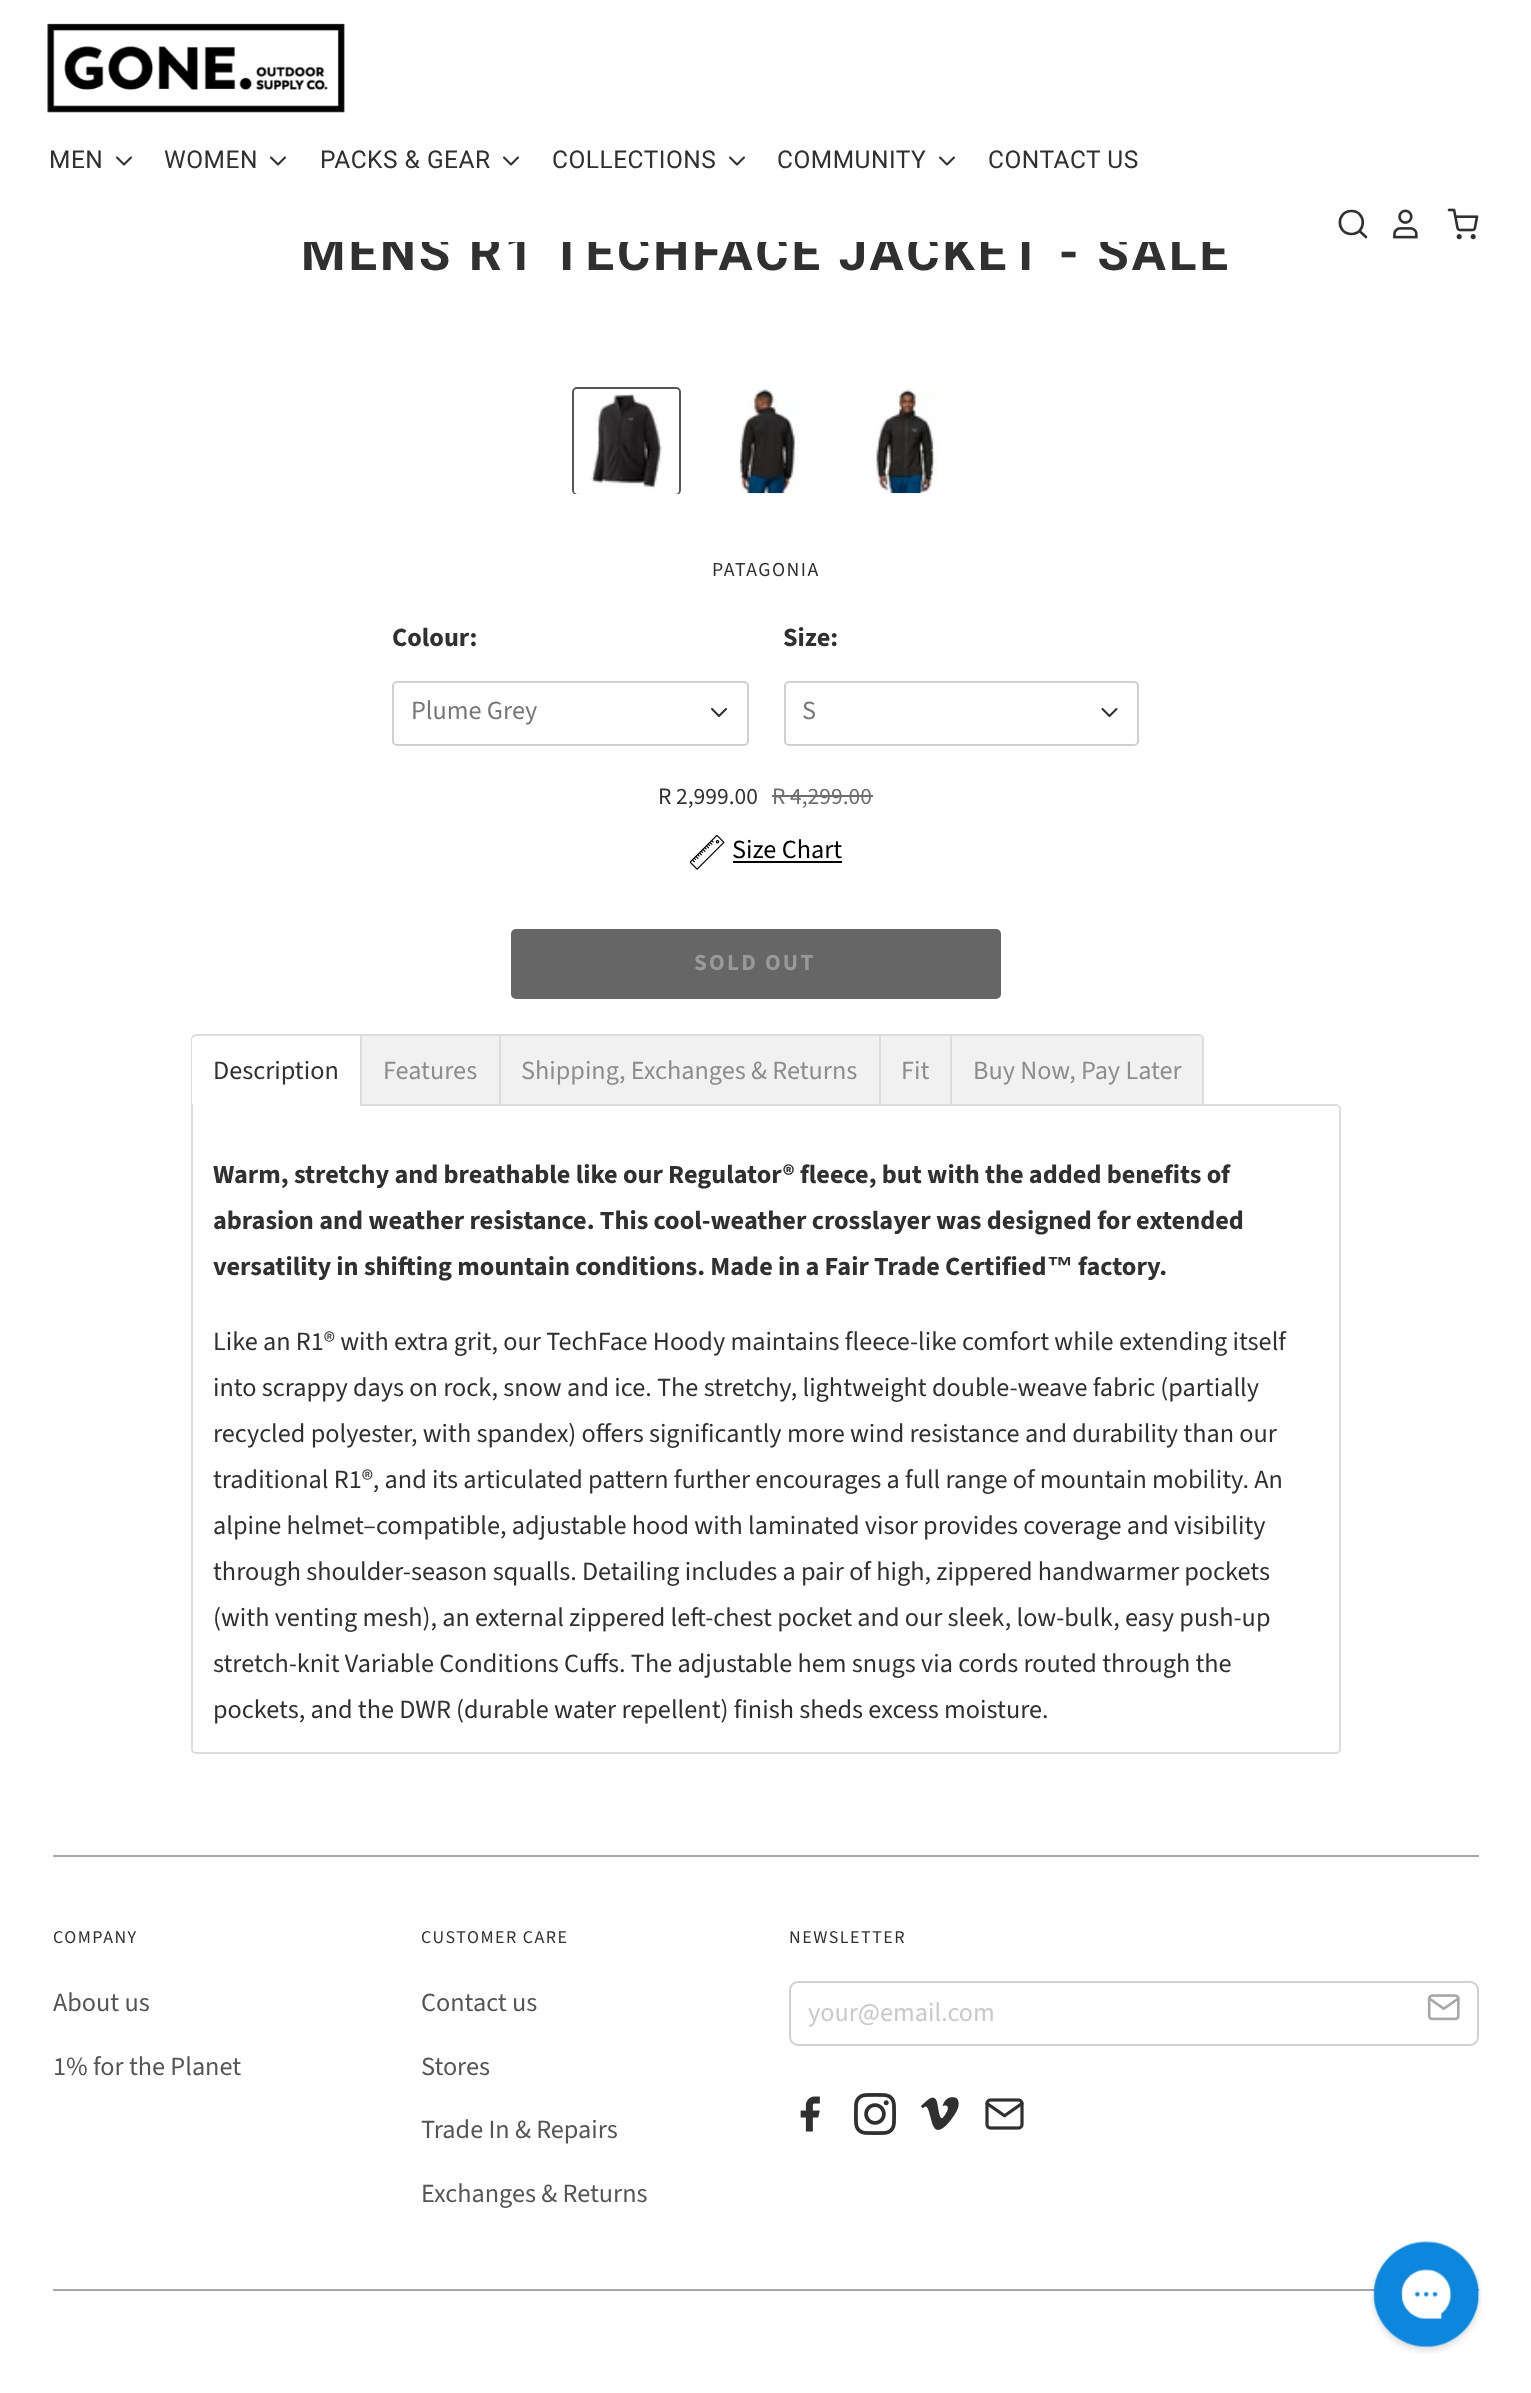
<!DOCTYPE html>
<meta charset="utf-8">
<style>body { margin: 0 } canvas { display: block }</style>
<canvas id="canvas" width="1531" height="2393"></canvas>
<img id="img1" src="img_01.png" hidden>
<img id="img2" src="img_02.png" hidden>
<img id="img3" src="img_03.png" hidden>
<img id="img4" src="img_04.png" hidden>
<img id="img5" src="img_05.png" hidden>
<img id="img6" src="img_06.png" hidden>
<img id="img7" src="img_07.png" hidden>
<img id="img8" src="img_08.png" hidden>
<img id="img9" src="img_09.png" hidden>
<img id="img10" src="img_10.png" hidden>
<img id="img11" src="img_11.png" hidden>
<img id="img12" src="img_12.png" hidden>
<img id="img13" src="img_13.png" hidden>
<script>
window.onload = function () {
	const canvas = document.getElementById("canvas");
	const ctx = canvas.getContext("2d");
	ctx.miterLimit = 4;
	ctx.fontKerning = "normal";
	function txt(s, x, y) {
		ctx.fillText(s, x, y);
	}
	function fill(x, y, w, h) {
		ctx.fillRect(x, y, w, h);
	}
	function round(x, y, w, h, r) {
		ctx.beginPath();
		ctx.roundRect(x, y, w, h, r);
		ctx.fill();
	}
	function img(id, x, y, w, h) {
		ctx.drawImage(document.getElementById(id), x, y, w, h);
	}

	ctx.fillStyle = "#FFFFFF";
	fill(0, 0, 1531, 2393);
	img("img1", 47, 23, 298, 90);
	ctx.beginPath();
	ctx.moveTo(117, 157.5);
	ctx.lineTo(124, 164.5);
	ctx.lineTo(131, 157.5);
	ctx.strokeStyle = "#303030";
	ctx.lineWidth = 2.1;
	ctx.lineCap = "round";
	ctx.lineJoin = "round";
	ctx.stroke();
	ctx.beginPath();
	ctx.moveTo(271, 157.5);
	ctx.lineTo(278, 164.5);
	ctx.lineTo(285, 157.5);
	ctx.stroke();
	ctx.beginPath();
	ctx.moveTo(504, 157.5);
	ctx.lineTo(511, 164.5);
	ctx.lineTo(518, 157.5);
	ctx.stroke();
	ctx.beginPath();
	ctx.moveTo(730, 157.5);
	ctx.lineTo(737, 164.5);
	ctx.lineTo(744, 157.5);
	ctx.stroke();
	ctx.beginPath();
	ctx.moveTo(940, 157.5);
	ctx.lineTo(947, 164.5);
	ctx.lineTo(954, 157.5);
	ctx.stroke();
	ctx.beginPath();
	ctx.moveTo(1351.5, 211);
	ctx.bezierCurveTo(1336, 211, 1336, 234, 1351.5, 234);
	ctx.bezierCurveTo(1366.5, 234, 1366.5, 211, 1351.5, 211);
	ctx.closePath();
	ctx.moveTo(1366, 237);
	ctx.lineTo(1359.5, 231);
	ctx.closePath();
	ctx.lineWidth = 2.6;
	ctx.stroke();
	img("img2", 1393, 209, 25, 30);
	img("img3", 1447, 208, 32, 32);
	img("img4", 590, 393, 72, 96);
	ctx.save();
	ctx.beginPath();
	ctx.rect(191, 343, 1150, 151);
	ctx.clip();
	ctx.beginPath();
	ctx.roundRect(573, 388, 107, 106, 4);
	ctx.strokeStyle = "#555555";
	ctx.lineWidth = 2;
	ctx.lineJoin = "miter";
	ctx.stroke();
	ctx.restore();
	ctx.beginPath();
	ctx.roundRect(576, 391, 101, 101, 2);
	ctx.strokeStyle = "#FFFFFF";
	ctx.lineWidth = 4;
	ctx.lineJoin = "miter";
	ctx.stroke();
	img("img5", 739, 388, 59, 106);
	img("img6", 876, 388, 62, 106);
	ctx.beginPath();
	ctx.roundRect(393, 682, 355, 63, 4);
	ctx.strokeStyle = "#D0D0D0";
	ctx.lineWidth = 2;
	ctx.stroke();
	ctx.beginPath();
	ctx.moveTo(712, 709);
	ctx.lineTo(719, 716);
	ctx.lineTo(726, 709);
	ctx.strokeStyle = "#303030";
	ctx.lineWidth = 2.1;
	ctx.lineJoin = "round";
	ctx.stroke();
	ctx.beginPath();
	ctx.roundRect(785, 682, 353, 63, 4);
	ctx.strokeStyle = "#D0D0D0";
	ctx.lineWidth = 2;
	ctx.lineJoin = "miter";
	ctx.stroke();
	ctx.beginPath();
	ctx.moveTo(1102.5, 709);
	ctx.lineTo(1109.5, 716);
	ctx.lineTo(1116.5, 709);
	ctx.strokeStyle = "#303030";
	ctx.lineWidth = 2.1;
	ctx.lineJoin = "round";
	ctx.stroke();
	ctx.fillStyle = "#6E6E6E";
	fill(772, 795, 101, 2);
	img("img7", 690, 835, 35, 35);
	ctx.fillStyle = "#000000";
	fill(733, 861, 109, 2);
	ctx.fillStyle = "#666666";
	round(511, 929, 490, 70, 5);
	ctx.beginPath();
	ctx.roundRect(192, 1105, 1148, 648, [0, 4, 4, 4]);
	ctx.strokeStyle = "#DDDDDD";
	ctx.lineWidth = 2;
	ctx.lineJoin = "miter";
	ctx.stroke();
	ctx.fillStyle = "#FFFFFF";
	ctx.beginPath();
	ctx.roundRect(193, 1036, 168, 70, [4, 0, 0, 0]);
	ctx.fill();
	ctx.fillStyle = "#DDDDDD";
	ctx.beginPath();
	ctx.moveTo(196, 1034);
	ctx.lineTo(362, 1034);
	ctx.lineTo(362, 1106);
	ctx.lineTo(191, 1106);
	ctx.lineTo(191, 1040);
	ctx.bezierCurveTo(191, 1037, 193, 1034, 196, 1034);
	ctx.closePath();
	ctx.moveTo(196, 1036);
	ctx.lineTo(360, 1036);
	ctx.lineTo(360, 1106);
	ctx.lineTo(192, 1106);
	ctx.lineTo(192, 1040);
	ctx.bezierCurveTo(192, 1038, 194, 1036, 196, 1036);
	ctx.closePath();
	ctx.fill("evenodd");
	ctx.fillStyle = "#F1F1F1";
	fill(362, 1036, 137, 68);
	ctx.fillStyle = "#DDDDDD";
	fill(362, 1034, 588, 2);
	ctx.fillStyle = "#F1F1F1";
	fill(501, 1036, 378, 68);
	ctx.fillStyle = "#DDDDDD";
	fill(499, 1034, 2, 72);
	ctx.fillStyle = "#F1F1F1";
	fill(881, 1036, 69, 68);
	ctx.fillStyle = "#DDDDDD";
	fill(879, 1034, 2, 72);
	ctx.fillStyle = "#F1F1F1";
	ctx.beginPath();
	ctx.roundRect(951, 1035, 252, 70, [0, 4, 0, 0]);
	ctx.fill();
	ctx.stroke();
	ctx.fillStyle = "#A7A7A7";
	fill(53, 1855, 1426, 2);
	ctx.beginPath();
	ctx.roundRect(790, 1982, 688, 63, 8);
	ctx.strokeStyle = "#D0D0D0";
	ctx.stroke();
	img("img8", 1427, 1994, 33, 27);
	img("img9", 800, 2096, 20, 36);
	img("img10", 854, 2093, 42, 42);
	img("img11", 921, 2097, 38, 33);
	img("img12", 985, 2098, 39, 32);
	fill(53, 2289, 1426, 2);
	img("img13", 1370, 2241, 112, 113);
	ctx.letterSpacing = "0.5px";
	ctx.font = "24.5px Roboto";
	ctx.fillStyle = "#303030";
	txt("MEN", 49, 168);
	txt("WOMEN", 164, 168);
	txt("PACKS & GEAR", 320, 168);
	txt("COLLECTIONS", 552, 168);
	txt("COMMUNITY", 777, 168);
	txt("CONTACT US", 988, 168);
	ctx.letterSpacing = "3.05px";
	ctx.font = "bold 50.75px Roboto";
	txt("MENS R1 TECHFACE JACKET - SALE", 301, 270);
	ctx.fillStyle = "#FFFFFF";
	fill(303, 233, 924, 9);
	ctx.letterSpacing = "1.5px";
	ctx.font = "19.75px Source Sans Pro";
	ctx.fillStyle = "#303030";
	txt("PATAGONIA", 712, 576);
	ctx.letterSpacing = "0px";
	ctx.font = "bold 26.25px Source Sans Pro";
	txt("Colour:", 392, 646);
	ctx.font = "26.25px Source Sans Pro";
	ctx.fillStyle = "#777777";
	txt("Plume Grey", 411, 719);
	ctx.font = "bold 26.25px Source Sans Pro";
	ctx.fillStyle = "#303030";
	txt("Size:", 783, 646);
	ctx.font = "26.25px Source Sans Pro";
	ctx.fillStyle = "#777777";
	txt("S", 802, 719);
	ctx.font = "23.5px Source Sans Pro";
	ctx.fillStyle = "#303030";
	txt("R 2,999.00", 658, 804);
	ctx.fillStyle = "#6E6E6E";
	txt("R 4,299.00", 772, 804);
	ctx.font = "26.25px Source Sans Pro";
	ctx.fillStyle = "#000000";
	txt("Size Chart", 732, 858);
	ctx.letterSpacing = "2.25px";
	ctx.font = "bold 23px Source Sans Pro";
	ctx.fillStyle = "#999999";
	txt("SOLD OUT", 694, 970);
	ctx.letterSpacing = "0px";
	ctx.font = "26.25px Source Sans Pro";
	ctx.fillStyle = "#303030";
	txt("Description", 213, 1079);
	ctx.fillStyle = "#8D8D8D";
	txt("Features", 383, 1079);
	txt("Shipping, Exchanges & Returns", 521, 1079);
	txt("Fit", 901, 1079);
	txt("Buy Now, Pay Later", 973, 1079);
	ctx.font = "bold 26.25px Source Sans Pro";
	ctx.fillStyle = "#303030";
	txt("Warm, stretchy and breathable like our Regulator® fleece, but with the added benefits of", 213, 1183);
	txt("abrasion and weather resistance. This cool-weather crosslayer was designed for extended", 213, 1229);
	txt("versatility in shifting mountain conditions. Made in a Fair Trade Certified", 213, 1275);
	ctx.font = "bold 26.25px Liberation Sans";
	txt("™", 1047, 1275);
	ctx.font = "bold 26.25px Source Sans Pro";
	txt("factory.", 1078, 1275);
	ctx.font = "26.25px Source Sans Pro";
	txt("Like an R1® with extra grit, our TechFace Hoody maintains fleece-like comfort while extending itself", 213, 1350);
	txt("into scrappy days on rock, snow and ice. The stretchy, lightweight double-weave fabric (partially", 213, 1396);
	txt("recycled polyester, with spandex) offers significantly more wind resistance and durability than our", 213, 1442);
	txt("traditional R1®, and its articulated pattern further encourages a full range of mountain mobility. An", 213, 1488);
	txt("alpine helmet–compatible, adjustable hood with laminated visor provides coverage and visibility", 213, 1534);
	txt("through shoulder-season squalls. Detailing includes a pair of high, zippered handwarmer pockets", 213, 1580);
	txt("(with venting mesh), an external zippered left-chest pocket and our sleek, low-bulk, easy push-up", 213, 1626);
	txt("stretch-knit Variable Conditions Cuffs. The adjustable hem snugs via cords routed through the", 213, 1672);
	txt("pockets, and the DWR (durable water repellent) finish sheds excess moisture.", 213, 1718);
	ctx.letterSpacing = "1.5px";
	ctx.font = "18px Source Sans Pro";
	txt("COMPANY", 53, 1943);
	ctx.letterSpacing = "0px";
	ctx.font = "26.25px Source Sans Pro";
	ctx.fillStyle = "#555555";
	txt("About us", 53, 2011);
	txt("1% for the Planet", 53, 2075);
	ctx.letterSpacing = "1.5px";
	ctx.font = "18px Source Sans Pro";
	ctx.fillStyle = "#303030";
	txt("CUSTOMER CARE", 421, 1943);
	ctx.letterSpacing = "0px";
	ctx.font = "26.25px Source Sans Pro";
	ctx.fillStyle = "#555555";
	txt("Contact us", 421, 2011);
	txt("Stores", 421, 2075);
	txt("Trade In & Repairs", 421, 2138);
	txt("Exchanges & Returns", 421, 2202);
	ctx.letterSpacing = "1.5px";
	ctx.font = "18px Source Sans Pro";
	ctx.fillStyle = "#303030";
	txt("NEWSLETTER", 789, 1943);
	ctx.letterSpacing = "0px";
	ctx.font = "26.25px Source Sans Pro";
	ctx.fillStyle = "#C9C9C9";
	txt("your@email.com", 808, 2021);
};
</script>
